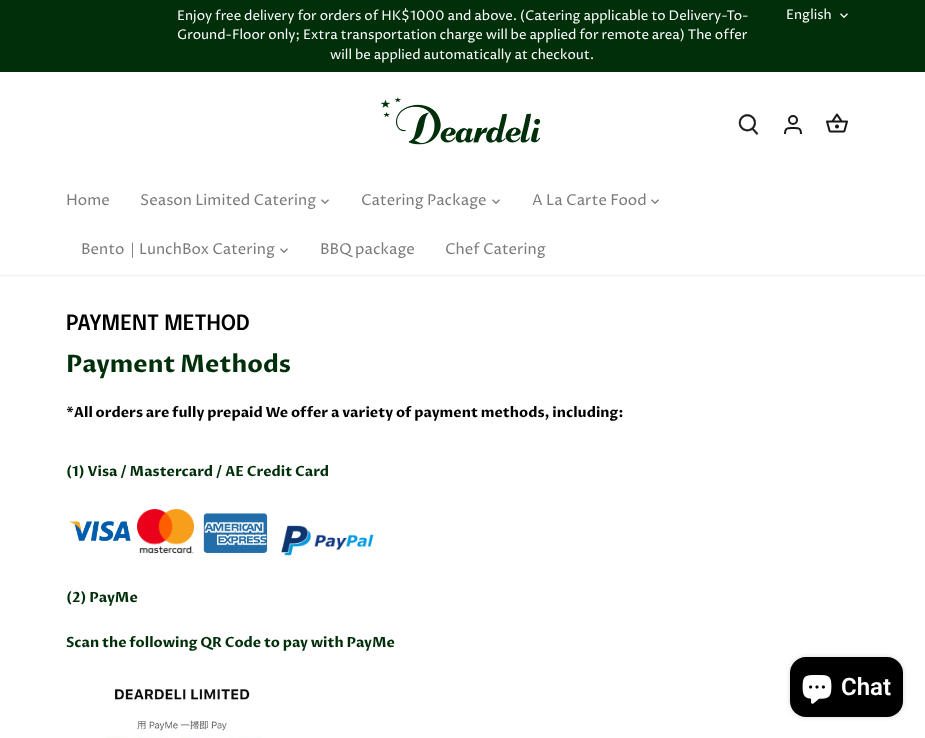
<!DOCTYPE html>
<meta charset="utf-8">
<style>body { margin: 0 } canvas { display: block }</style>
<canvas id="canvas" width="925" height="738"></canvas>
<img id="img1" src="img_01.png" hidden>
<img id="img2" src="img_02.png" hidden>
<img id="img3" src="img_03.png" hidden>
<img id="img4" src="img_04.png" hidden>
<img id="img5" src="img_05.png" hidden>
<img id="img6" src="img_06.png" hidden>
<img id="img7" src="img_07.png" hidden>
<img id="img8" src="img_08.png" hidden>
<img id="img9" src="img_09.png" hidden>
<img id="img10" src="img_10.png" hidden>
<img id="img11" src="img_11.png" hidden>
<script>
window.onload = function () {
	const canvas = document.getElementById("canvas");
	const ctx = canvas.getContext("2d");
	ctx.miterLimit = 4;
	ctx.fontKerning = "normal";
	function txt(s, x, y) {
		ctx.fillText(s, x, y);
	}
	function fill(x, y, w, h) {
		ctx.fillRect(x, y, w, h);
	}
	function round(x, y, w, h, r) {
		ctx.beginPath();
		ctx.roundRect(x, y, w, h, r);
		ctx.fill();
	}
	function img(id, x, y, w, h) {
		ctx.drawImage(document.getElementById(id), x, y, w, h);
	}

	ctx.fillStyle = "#FFFFFF";
	fill(0, 0, 925, 738);
	ctx.save();
	ctx.beginPath();
	ctx.rect(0, 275, 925, 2);
	ctx.clip();
	ctx.fillStyle = "rgba(0, 0, 0, 0.08)";
	ctx.filter = "blur(1.5px)";
	ctx.beginPath();
	ctx.rect(-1, 71, 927, 205);
	ctx.fill();
	ctx.filter = "none";
	ctx.restore();
	ctx.fillStyle = "#002F0A";
	fill(0, 0, 925, 72);
	img("img1", 840, 13, 8, 5);
	img("img2", 380, 97, 161, 48);
	img("img3", 738, 114, 21, 21);
	ctx.beginPath();
	ctx.arc(793, 120, 4, 0, Math.PI * 2);
	ctx.strokeStyle = "#191817";
	ctx.lineWidth = 2;
	ctx.stroke();
	ctx.beginPath();
	ctx.moveTo(801, 134);
	ctx.bezierCurveTo(801, 127.5, 798.5, 128, 793, 128);
	ctx.bezierCurveTo(787.5, 128, 785, 127.5, 785, 134);
	ctx.stroke();
	img("img4", 826, 113, 22, 20);
	img("img5", 321, 199, 8, 5);
	img("img5", 492, 199, 8, 5);
	img("img5", 651, 199, 8, 5);
	img("img5", 280, 248, 8, 5);
	img("img6", 69, 521, 62, 20);
	img("img7", 137, 509, 57, 45);
	img("img8", 203, 513, 65, 40);
	img("img9", 281, 525, 93, 31);
	img("img10", 105, 687, 158, 51);
	ctx.fillStyle = "rgba(0, 0, 0, 0.15)";
	ctx.filter = "blur(2.5px)";
	ctx.beginPath();
	ctx.roundRect(790, 657, 113, 60, 16);
	ctx.fill();
	ctx.filter = "none";
	ctx.fillStyle = "#000000";
	round(790, 657, 113, 60, 16);
	img("img11", 802, 675, 30, 29);
	ctx.font = "13.3px Proza Libre";
	ctx.fillStyle = "#FFFFFF";
	txt("Enjoy free delivery for orders of HK$1000 and above. (Catering applicable to Delivery-To-", 177, 20);
	txt("Ground-Floor only; Extra transportation charge will be applied for remote area) The offer", 177, 39);
	txt("will be applied automatically at checkout.", 330, 59);
	txt("English", 786, 19);
	ctx.font = "15px Proza Libre";
	ctx.fillStyle = "#787A7C";
	txt("Home", 66, 205);
	txt("Season Limited Catering", 140, 205);
	txt("Catering Package", 361, 205);
	txt("A La Carte Food", 532, 205);
	txt("Bento", 81, 254);
	ctx.font = "500 15px WenQuanYi Zen Hei";
	txt("｜", 125, 254);
	ctx.font = "15px Proza Libre";
	txt("LunchBox Catering", 139, 254);
	txt("BBQ package", 320, 254);
	txt("Chef Catering", 445, 254);
	ctx.font = "600 21px Epilogue";
	ctx.fillStyle = "#000000";
	txt("PAYMENT METHOD", 66, 330);
	ctx.font = "bold 24px Proza Libre";
	ctx.fillStyle = "#002F0A";
	txt("Payment Methods", 66, 372);
	ctx.font = "bold 14px Proza Libre";
	ctx.fillStyle = "#000000";
	txt("*All orders are fully prepaid We offer a variety of payment methods, including:", 66, 417);
	ctx.fillStyle = "#002F0A";
	txt("(1) Visa / Mastercard / AE Credit Card", 66, 476);
	txt("(2) PayMe", 66, 602);
	txt("Scan the following QR Code to pay with PayMe", 66, 647);
	ctx.font = "600 24px Roboto";
	ctx.fillStyle = "#FFFFFF";
	txt("Chat", 841, 695);
};
</script>
